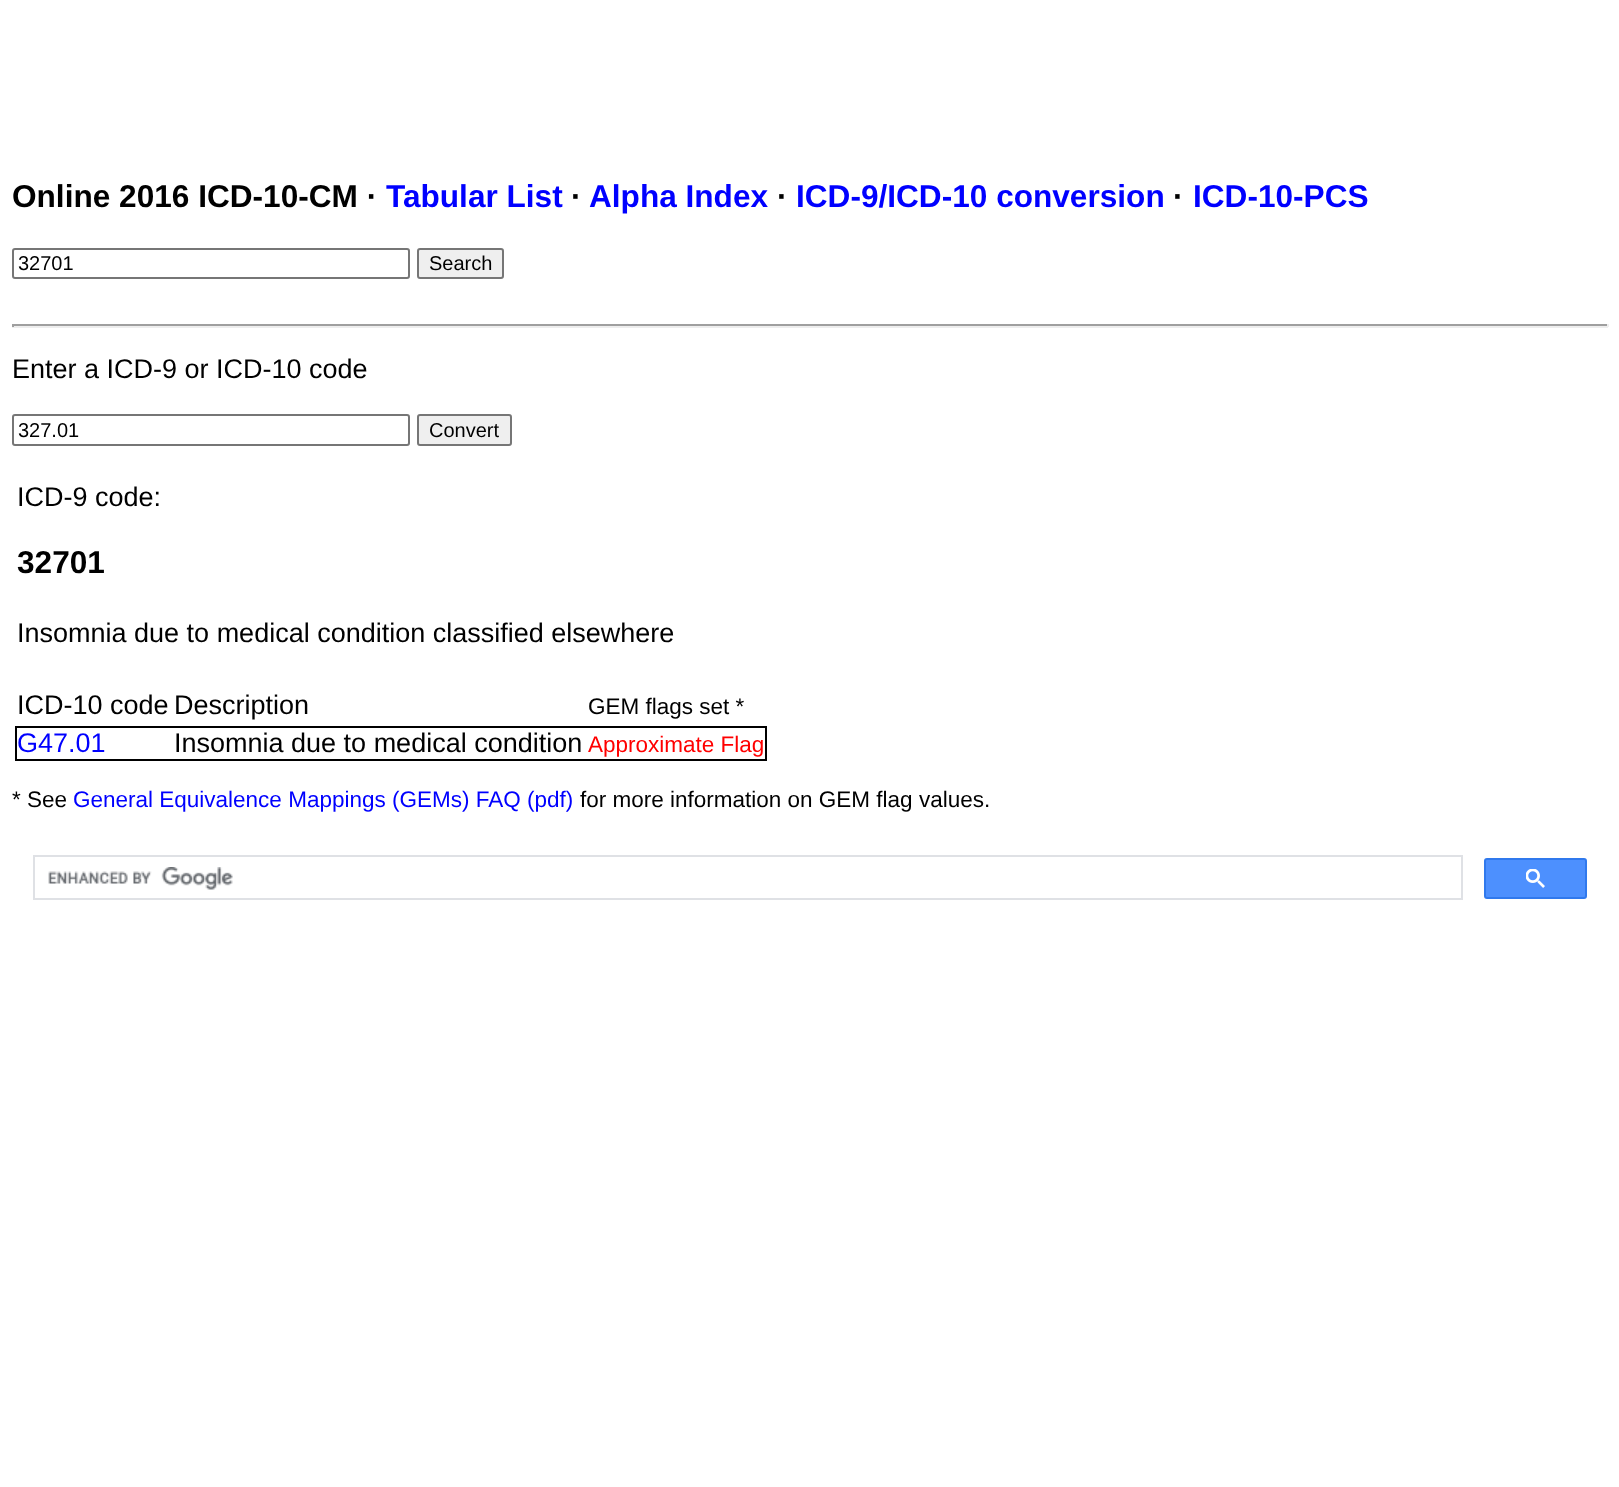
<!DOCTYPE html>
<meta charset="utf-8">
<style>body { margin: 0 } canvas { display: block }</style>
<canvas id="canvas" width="1619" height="1487"></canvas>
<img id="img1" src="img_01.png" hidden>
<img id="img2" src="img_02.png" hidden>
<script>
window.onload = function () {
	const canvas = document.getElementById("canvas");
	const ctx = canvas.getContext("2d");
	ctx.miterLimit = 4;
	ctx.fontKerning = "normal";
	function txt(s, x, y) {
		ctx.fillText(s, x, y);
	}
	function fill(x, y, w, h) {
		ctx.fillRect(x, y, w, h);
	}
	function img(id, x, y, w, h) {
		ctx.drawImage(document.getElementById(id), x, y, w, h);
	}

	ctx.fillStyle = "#FFFFFF";
	fill(0, 0, 1619, 1487);
	ctx.beginPath();
	ctx.roundRect(13, 249, 396, 29, 2);
	ctx.strokeStyle = "#767676";
	ctx.lineWidth = 2;
	ctx.stroke();
	ctx.fillStyle = "#EFEFEF";
	ctx.beginPath();
	ctx.roundRect(418, 249, 85, 29, 2);
	ctx.fill();
	ctx.stroke();
	ctx.fillStyle = "#9F9F9F";
	fill(12, 324, 1596, 2);
	ctx.fillStyle = "#EEEEEE";
	fill(1607, 324, 2, 3);
	fill(12, 326, 1596, 2);
	ctx.fillStyle = "#9F9F9F";
	fill(12, 324, 2, 3);
	ctx.beginPath();
	ctx.roundRect(13, 415, 396, 30, 2);
	ctx.stroke();
	ctx.fillStyle = "#EFEFEF";
	ctx.beginPath();
	ctx.roundRect(418, 415, 93, 30, 2);
	ctx.fill();
	ctx.stroke();
	ctx.strokeStyle = "#000000";
	ctx.strokeRect(16, 727, 750, 33);
	ctx.strokeStyle = "#DFE1E5";
	ctx.strokeRect(34, 856, 1428, 43);
	img("img1", 48, 867, 185, 23);
	ctx.fillStyle = "#4D90FE";
	ctx.beginPath();
	ctx.roundRect(1485, 859, 101, 39, 2);
	ctx.fill();
	ctx.strokeStyle = "#3079ED";
	ctx.stroke();
	img("img2", 1526, 869, 19, 19);
	ctx.font = "bold 31.6px Liberation Sans";
	ctx.fillStyle = "#000000";
	txt("Online 2016 ICD-10-CM ·", 12, 207);
	ctx.fillStyle = "#0000FF";
	txt("Tabular List", 386, 207);
	ctx.fillStyle = "#000000";
	txt("·", 571, 207);
	ctx.fillStyle = "#0000FF";
	txt("Alpha Index", 589, 207);
	ctx.fillStyle = "#000000";
	txt("·", 777, 207);
	ctx.fillStyle = "#0000FF";
	txt("ICD-9/ICD-10 conversion", 796, 207);
	ctx.fillStyle = "#000000";
	txt("·", 1173, 207);
	ctx.fillStyle = "#0000FF";
	txt("ICD-10-PCS", 1193, 207);
	ctx.font = "20px Liberation Sans";
	ctx.fillStyle = "#000000";
	txt("32701", 18, 270);
	txt("Search", 429, 270);
	ctx.font = "27px Liberation Sans";
	txt("Enter a ICD-9 or ICD-10 code", 12, 378);
	ctx.font = "20px Liberation Sans";
	txt("327.01", 18, 437);
	txt("Convert", 429, 437);
	ctx.font = "27px Liberation Sans";
	txt("ICD-9 code:", 17, 506);
	ctx.font = "bold 31.6px Liberation Sans";
	txt("32701", 17, 573);
	ctx.font = "27px Liberation Sans";
	txt("Insomnia due to medical condition classified elsewhere", 17, 642);
	txt("ICD-10 code", 17, 714);
	txt("Description", 174, 714);
	ctx.font = "22.5px Liberation Sans";
	txt("GEM flags set *", 588, 714);
	ctx.font = "27px Liberation Sans";
	ctx.fillStyle = "#0000FF";
	txt("G47.01", 17, 752);
	ctx.fillStyle = "#000000";
	txt("Insomnia due to medical condition", 174, 752);
	ctx.font = "22.5px Liberation Sans";
	ctx.fillStyle = "#FF0000";
	txt("Approximate Flag", 588, 752);
	ctx.fillStyle = "#000000";
	txt("* See", 12, 807);
	ctx.fillStyle = "#0000FF";
	txt("General Equivalence Mappings (GEMs) FAQ (pdf)", 73, 807);
	ctx.fillStyle = "#000000";
	txt("for more information on GEM flag values.", 580, 807);
};
</script>
